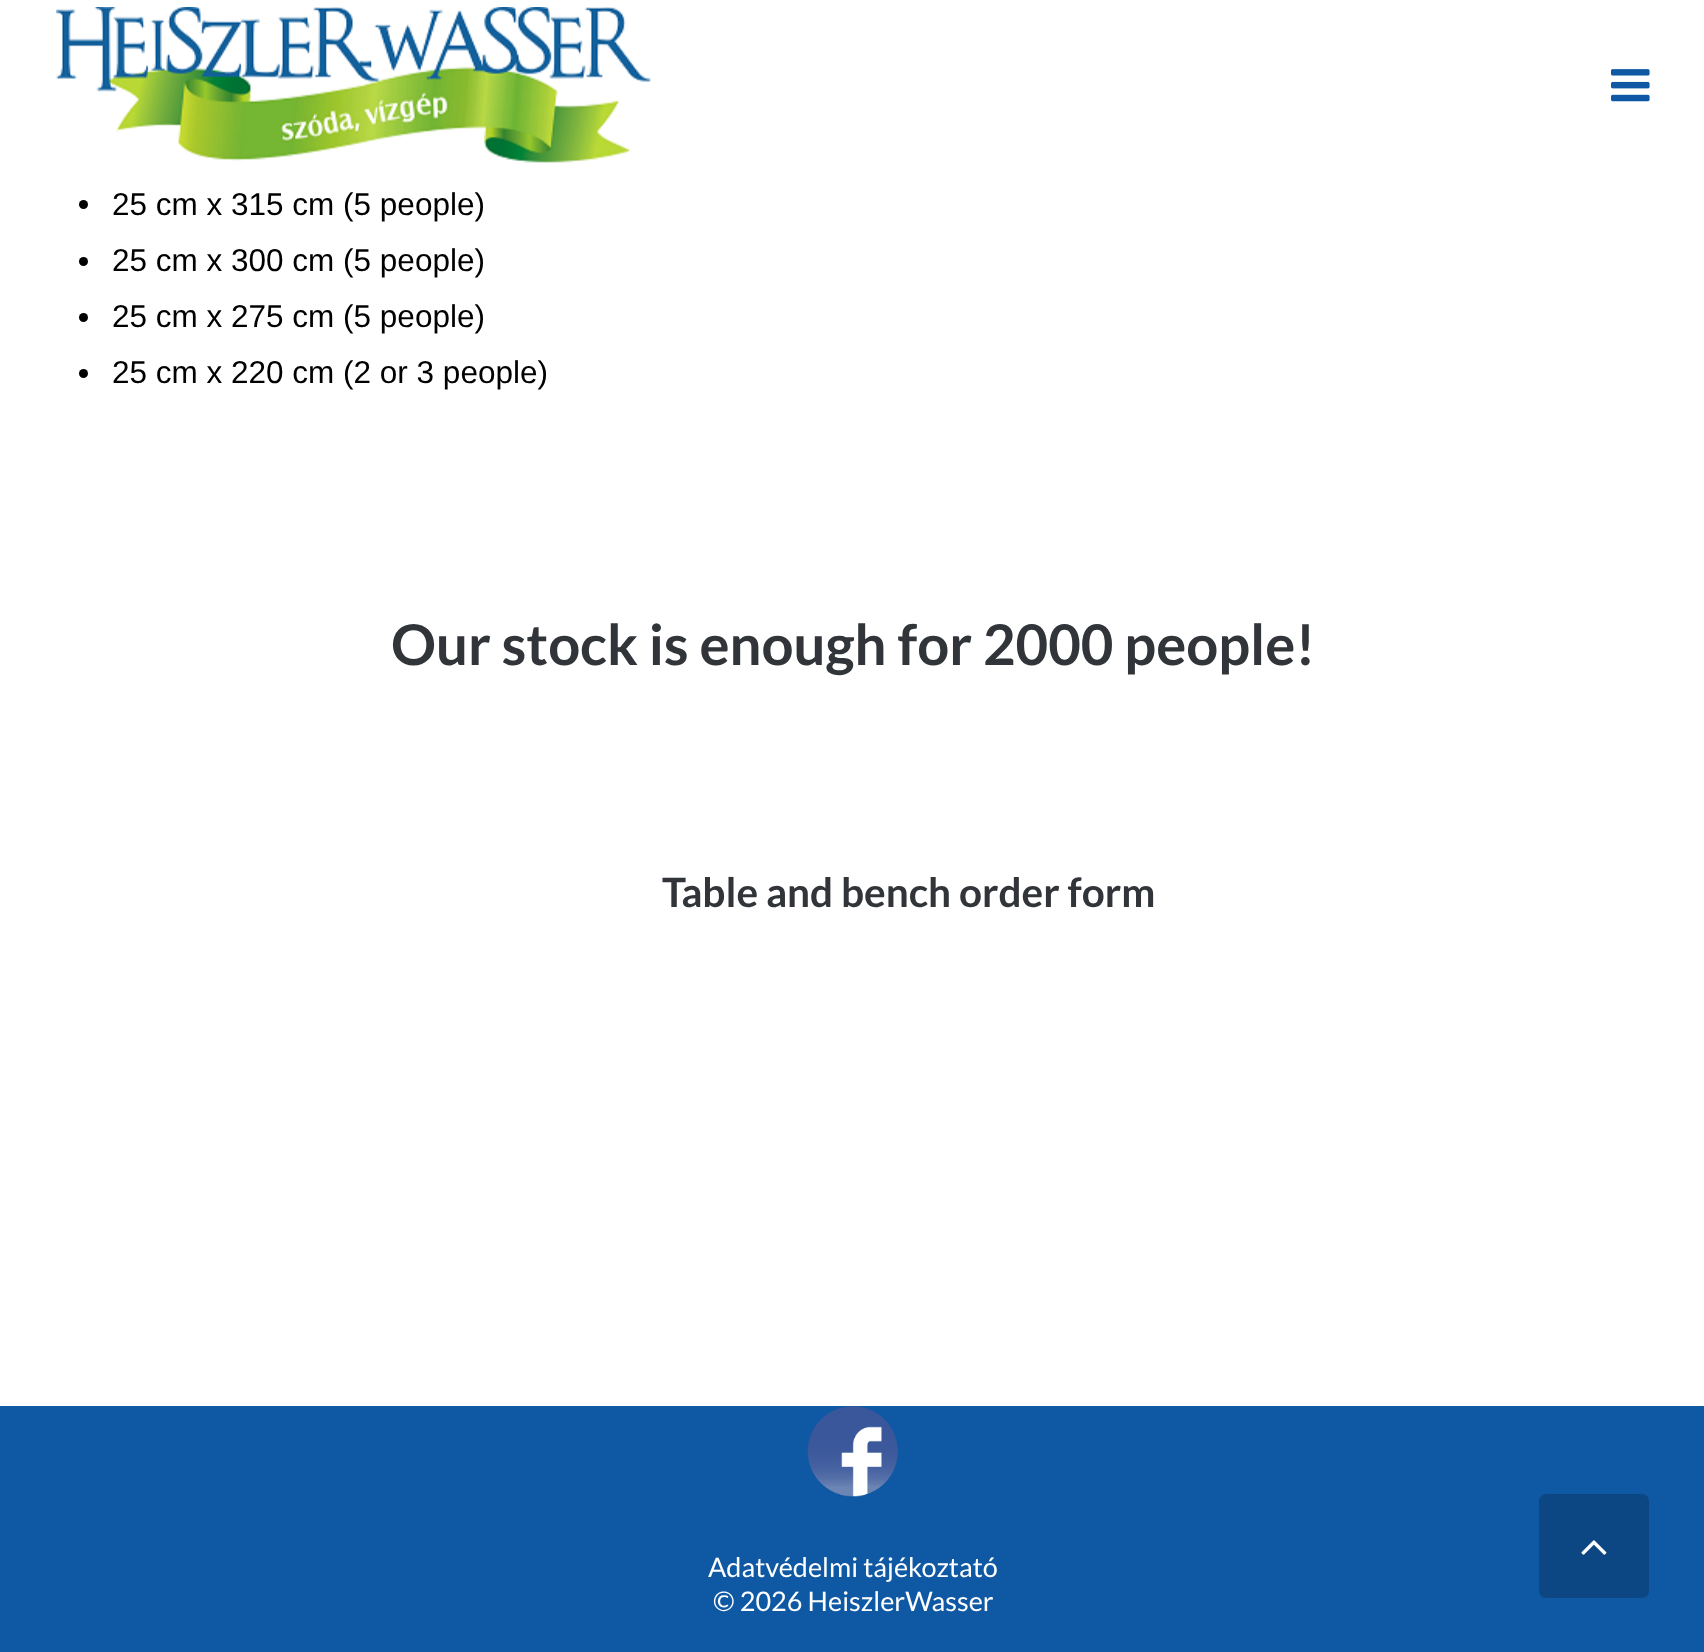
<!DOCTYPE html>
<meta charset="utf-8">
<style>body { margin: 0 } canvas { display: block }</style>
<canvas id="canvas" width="1704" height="1652"></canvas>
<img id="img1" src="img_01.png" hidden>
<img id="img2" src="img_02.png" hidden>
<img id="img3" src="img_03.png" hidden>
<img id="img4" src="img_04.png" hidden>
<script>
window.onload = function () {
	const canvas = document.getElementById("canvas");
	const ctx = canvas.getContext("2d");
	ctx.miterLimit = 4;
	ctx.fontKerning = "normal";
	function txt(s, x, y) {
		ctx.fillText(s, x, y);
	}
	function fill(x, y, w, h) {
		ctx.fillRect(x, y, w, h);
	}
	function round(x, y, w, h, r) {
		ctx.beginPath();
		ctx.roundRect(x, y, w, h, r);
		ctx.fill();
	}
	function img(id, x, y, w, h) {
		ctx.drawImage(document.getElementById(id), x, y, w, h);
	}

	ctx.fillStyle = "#FFFFFF";
	fill(0, 0, 1704, 1652);
	img("img1", 56, 7, 595, 156);
	img("img2", 1611, 69, 39, 33);
	ctx.fillStyle = "#000000";
	ctx.beginPath();
	ctx.arc(83.5, 204.5, 4.5, 0, Math.PI * 2);
	ctx.fill();
	ctx.beginPath();
	ctx.arc(83.5, 261.5, 4.5, 0, Math.PI * 2);
	ctx.fill();
	ctx.beginPath();
	ctx.arc(83.5, 317.5, 4.5, 0, Math.PI * 2);
	ctx.fill();
	ctx.beginPath();
	ctx.arc(83.5, 373.5, 4.5, 0, Math.PI * 2);
	ctx.fill();
	ctx.fillStyle = "#0F59A4";
	fill(0, 1406, 1704, 246);
	img("img3", 807, 1406, 91, 91);
	ctx.fillStyle = "#0C4783";
	round(1539, 1494, 110, 104, 7);
	img("img4", 1581, 1540, 26, 15);
	ctx.font = "31.5px Liberation Sans";
	ctx.fillStyle = "#000000";
	txt("25 cm x 315 cm (5 people)", 112, 215);
	txt("25 cm x 300 cm (5 people)", 112, 271);
	txt("25 cm x 275 cm (5 people)", 112, 327);
	txt("25 cm x 220 cm (2 or 3 people)", 112, 383);
	ctx.font = "bold 56.25px Lato";
	ctx.fillStyle = "#313539";
	txt("Our stock is enough for 2000 people!", 391, 665);
	ctx.font = "bold 40.5px Lato";
	txt("Table and bench order form", 662, 907);
	ctx.font = "27px Lato";
	ctx.fillStyle = "#FFFFFF";
	txt("Adatvédelmi tájékoztató", 708, 1577);
	txt("© 2026 HeiszlerWasser", 713, 1611);
};
</script>
